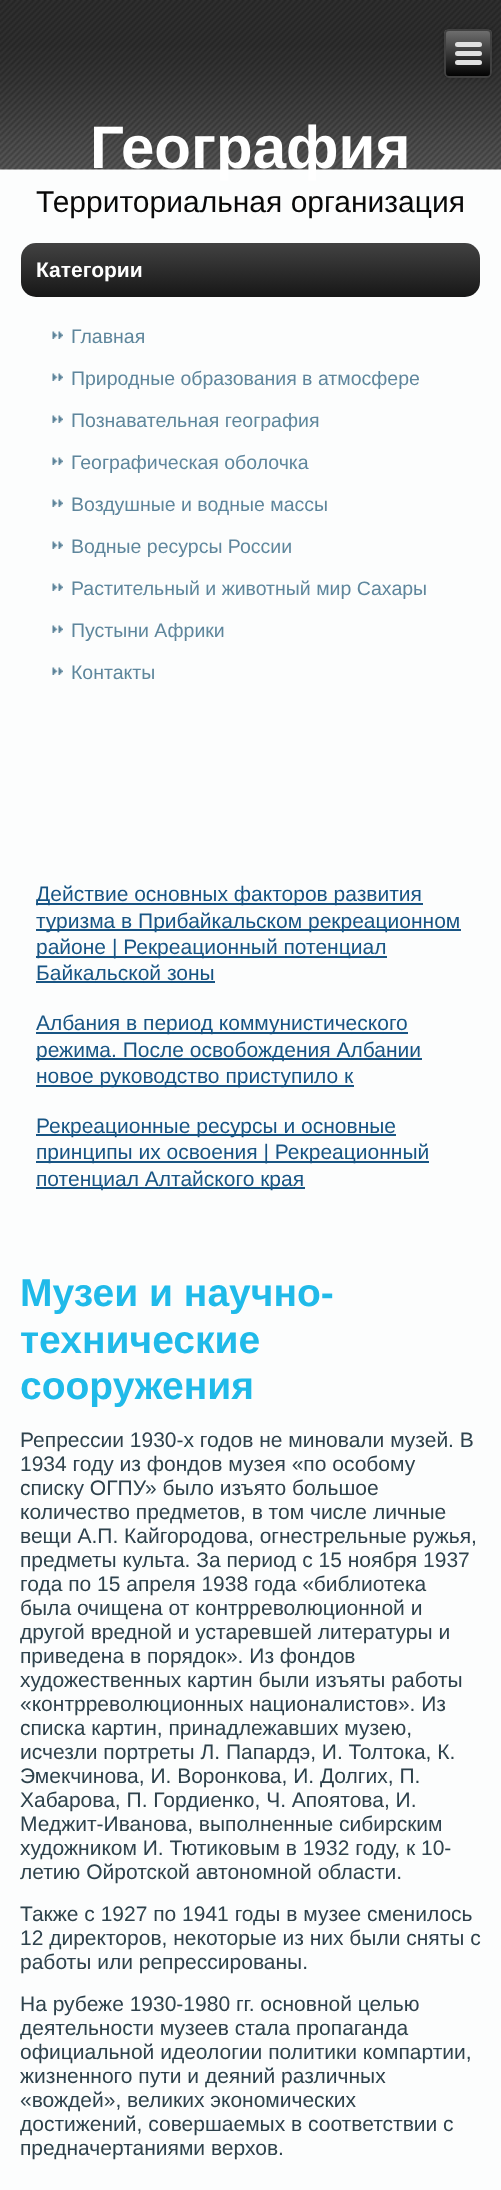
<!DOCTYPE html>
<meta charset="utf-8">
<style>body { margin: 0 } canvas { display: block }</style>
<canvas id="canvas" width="501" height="2190"></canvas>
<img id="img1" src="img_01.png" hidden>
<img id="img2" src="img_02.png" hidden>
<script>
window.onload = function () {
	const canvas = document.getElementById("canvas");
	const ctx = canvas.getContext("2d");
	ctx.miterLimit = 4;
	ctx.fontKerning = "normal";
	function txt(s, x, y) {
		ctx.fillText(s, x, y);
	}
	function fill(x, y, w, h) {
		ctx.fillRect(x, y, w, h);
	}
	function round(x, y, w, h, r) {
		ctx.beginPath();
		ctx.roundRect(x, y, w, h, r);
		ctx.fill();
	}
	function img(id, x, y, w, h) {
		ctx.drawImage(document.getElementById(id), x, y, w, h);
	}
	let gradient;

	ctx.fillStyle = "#FCFDFD";
	fill(0, 0, 501, 2190);
	img("img1", 0, 0, 501, 170);
	ctx.fillStyle = "rgba(0, 0, 0, 0.2)";
	ctx.filter = "blur(2px)";
	ctx.beginPath();
	ctx.roundRect(444, 29, 48, 49, 5);
	ctx.fill();
	ctx.filter = "none";
	ctx.save();
	ctx.beginPath();
	ctx.roundRect(444, 29, 48, 49, 5);
	ctx.clip();
	gradient = ctx.createLinearGradient(468, 30, 468, 77);
	gradient.addColorStop(0, "#707070");
	gradient.addColorStop(1, "#000000");
	ctx.fillStyle = gradient;
	fill(444, 30, 48, 47);
	ctx.restore();
	ctx.beginPath();
	ctx.roundRect(445, 30, 46, 47, 4);
	ctx.strokeStyle = "#404040";
	ctx.lineWidth = 2;
	ctx.stroke();
	ctx.fillStyle = "#E0E0E0";
	round(455, 42, 27, 5, 2.5);
	round(455, 51, 27, 5, 2.5);
	round(455, 60, 27, 5, 2.5);
	gradient = ctx.createLinearGradient(251, 243, 251, 297);
	gradient.addColorStop(0, "#424242");
	gradient.addColorStop(1, "#171717");
	ctx.fillStyle = gradient;
	round(21, 243, 459, 54, 15);
	img("img2", 52, 331, 11, 8);
	img("img2", 52, 373, 11, 8);
	img("img2", 52, 415, 11, 8);
	img("img2", 52, 457, 11, 8);
	img("img2", 52, 499, 11, 8);
	img("img2", 52, 541, 11, 8);
	img("img2", 52, 583, 11, 8);
	img("img2", 52, 625, 11, 8);
	img("img2", 52, 667, 11, 8);
	ctx.fillStyle = "#185584";
	fill(36, 903, 387, 2);
	fill(36, 929, 425, 2);
	fill(36, 956, 351, 2);
	fill(36, 981, 179, 2);
	fill(36, 1032, 372, 2);
	fill(36, 1058, 386, 2);
	fill(36, 1085, 318, 2);
	fill(36, 1134, 360, 2);
	fill(36, 1161, 393, 2);
	fill(36, 1187, 269, 2);
	ctx.font = "bold 60px Liberation Sans";
	ctx.fillStyle = "#FFFFFF";
	txt("География", 90, 168);
	ctx.font = "30px Liberation Sans";
	ctx.fillStyle = "#080808";
	txt("Территориальная организация", 36, 212);
	ctx.font = "bold 21px Liberation Sans";
	ctx.fillStyle = "#FFFFFF";
	txt("Категории", 36, 277);
	ctx.font = "19.5px Liberation Sans";
	ctx.fillStyle = "#5E869C";
	txt("Главная", 71, 343);
	txt("Природные образования в атмосфере", 71, 385);
	txt("Познавательная география", 71, 427);
	txt("Географическая оболочка", 71, 469);
	txt("Воздушные и водные массы", 71, 511);
	txt("Водные ресурсы России", 71, 553);
	txt("Растительный и животный мир Сахары", 71, 595);
	txt("Пустыни Африки", 71, 637);
	txt("Контакты", 71, 679);
	ctx.font = "21px Liberation Sans";
	ctx.fillStyle = "#185584";
	txt("Действие основных факторов развития", 36, 901);
	txt("туризма в Прибайкальском рекреационном", 36, 928);
	txt("районе | Рекреационный потенциал", 36, 954);
	txt("Байкальской зоны", 36, 980);
	txt("Албания в период коммунистического", 36, 1030);
	txt("режима. После освобождения Албании", 36, 1057);
	txt("новое руководство приступило к", 36, 1083);
	txt("Рекреационные ресурсы и основные", 36, 1133);
	txt("принципы их освоения | Рекреационный", 36, 1159);
	txt("потенциал Алтайского края", 36, 1186);
	ctx.font = "bold 39px Liberation Sans";
	ctx.fillStyle = "#20BAE9";
	txt("Музеи и научно-", 20, 1306);
	txt("технические", 20, 1353);
	txt("сооружения", 20, 1399);
	ctx.font = "21px Liberation Sans";
	ctx.fillStyle = "#2E424C";
	txt("Репрессии 1930-х годов не миновали музей. В", 20, 1447);
	txt("1934 году из фондов музея «по особому", 20, 1471);
	txt("списку ОГПУ» было изъято большое", 20, 1495);
	txt("количество предметов, в том числе личные", 20, 1519);
	txt("вещи А.П. Кайгородова, огнестрельные ружья,", 20, 1543);
	txt("предметы культа. За период с 15 ноября 1937", 20, 1567);
	txt("года по 15 апреля 1938 года «библиотека", 20, 1591);
	txt("была очищена от контрреволюционной и", 20, 1615);
	txt("другой вредной и устаревшей литературы и", 20, 1639);
	txt("приведена в порядок». Из фондов", 20, 1663);
	txt("художественных картин были изъяты работы", 20, 1687);
	txt("«контрреволюционных националистов». Из", 20, 1711);
	txt("списка картин, принадлежавших музею,", 20, 1735);
	txt("исчезли портреты Л. Папардэ, И. Толтока, К.", 20, 1759);
	txt("Эмекчинова, И. Воронкова, И. Долгих, П.", 20, 1783);
	txt("Хабарова, П. Гордиенко, Ч. Апоятова, И.", 20, 1807);
	txt("Меджит-Иванова, выполненные сибирским", 20, 1831);
	txt("художником И. Тютиковым в 1932 году, к 10-", 20, 1855);
	txt("летию Ойротской автономной области.", 20, 1879);
	txt("Также с 1927 по 1941 годы в музее сменилось", 20, 1921);
	txt("12 директоров, некоторые из них были сняты с", 20, 1945);
	txt("работы или репрессированы.", 20, 1969);
	txt("На рубеже 1930-1980 гг. основной целью", 20, 2011);
	txt("деятельности музеев стала пропаганда", 20, 2035);
	txt("официальной идеологии политики компартии,", 20, 2059);
	txt("жизненного пути и деяний различных", 20, 2083);
	txt("«вождей», великих экономических", 20, 2107);
	txt("достижений, совершаемых в соответствии с", 20, 2131);
	txt("предначертаниями верхов.", 20, 2155);
};
</script>
